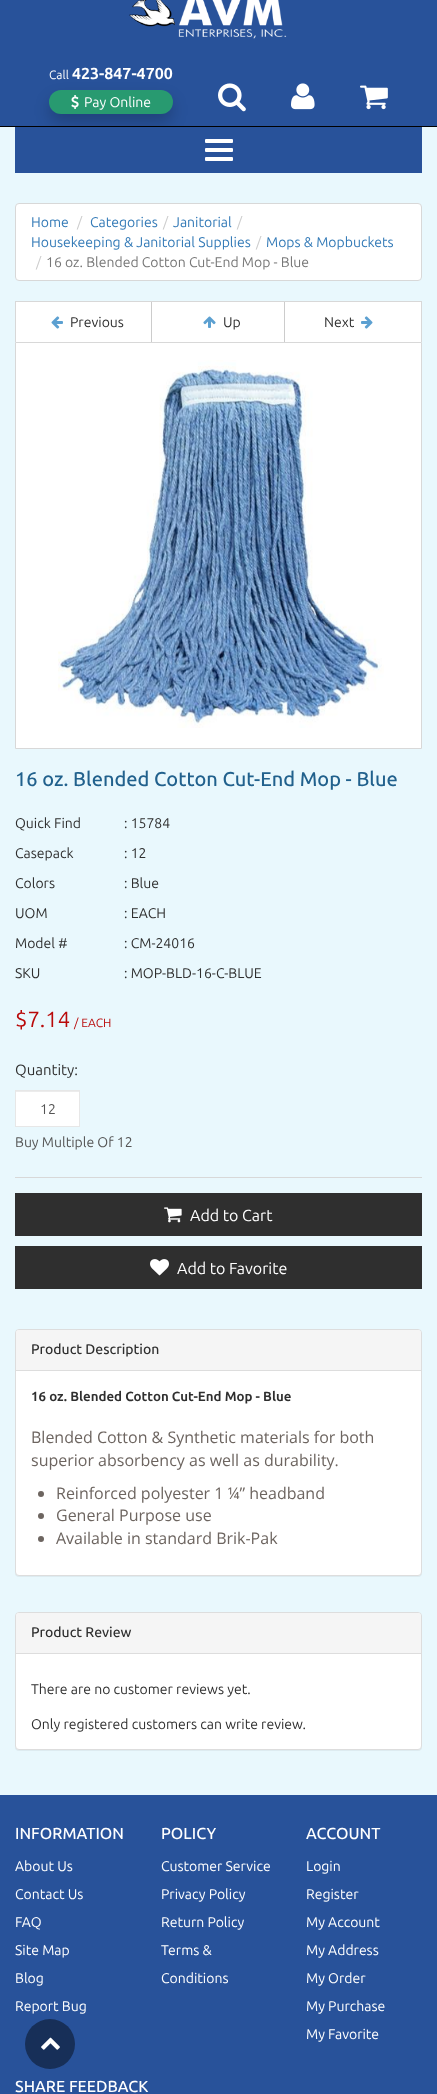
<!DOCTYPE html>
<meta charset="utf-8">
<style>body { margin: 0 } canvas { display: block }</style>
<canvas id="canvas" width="437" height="2094"></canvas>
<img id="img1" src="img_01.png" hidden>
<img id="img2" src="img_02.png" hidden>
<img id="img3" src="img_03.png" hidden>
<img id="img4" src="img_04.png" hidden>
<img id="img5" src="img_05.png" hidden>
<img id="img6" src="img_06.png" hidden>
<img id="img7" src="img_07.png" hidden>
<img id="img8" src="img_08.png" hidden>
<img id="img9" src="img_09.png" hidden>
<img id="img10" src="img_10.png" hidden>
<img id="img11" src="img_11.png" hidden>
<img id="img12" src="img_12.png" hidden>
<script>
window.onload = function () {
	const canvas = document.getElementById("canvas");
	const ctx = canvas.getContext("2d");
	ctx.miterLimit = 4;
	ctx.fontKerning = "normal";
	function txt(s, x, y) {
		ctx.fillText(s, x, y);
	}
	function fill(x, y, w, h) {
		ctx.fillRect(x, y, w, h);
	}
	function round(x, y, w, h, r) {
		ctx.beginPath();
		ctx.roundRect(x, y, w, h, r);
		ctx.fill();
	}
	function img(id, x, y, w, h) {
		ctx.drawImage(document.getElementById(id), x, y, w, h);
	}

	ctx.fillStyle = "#E9F8FD";
	fill(0, 0, 437, 2094);
	ctx.fillStyle = "#000000";
	ctx.filter = "blur(0.5px)";
	ctx.beginPath();
	ctx.rect(0, -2, 437, 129);
	ctx.fill();
	ctx.filter = "none";
	ctx.fillStyle = "#28529A";
	fill(0, 0, 437, 126);
	img("img1", 129, 0, 158, 39);
	ctx.fillStyle = "rgba(0, 0, 0, 0.2)";
	ctx.filter = "blur(7.5px)";
	ctx.beginPath();
	ctx.roundRect(49, 98, 124, 24, 12);
	ctx.fill();
	ctx.filter = "none";
	ctx.fillStyle = "#289A70";
	round(49, 90, 124, 24, 12);
	img("img2", 71, 95, 8, 14);
	img("img3", 218, 83, 28, 29);
	img("img4", 291, 83, 24, 27);
	img("img5", 360, 85, 28, 25);
	ctx.fillStyle = "#28529A";
	fill(15, 127, 407, 46);
	ctx.fillStyle = "#000000";
	fill(15, 126, 407, 1);
	ctx.fillStyle = "#FFFFFF";
	round(205, 139, 28, 4, 1);
	round(205, 148, 28, 4, 1);
	round(205, 157, 28, 4, 1);
	ctx.beginPath();
	ctx.roundRect(15.5, 203.5, 406, 77, 3.5);
	ctx.fill();
	ctx.strokeStyle = "#D8D8D8";
	ctx.stroke();
	fill(16, 302, 405, 40);
	ctx.fillStyle = "#D8D8D8";
	fill(15, 301, 407, 1);
	fill(421, 301, 1, 41);
	fill(15, 301, 1, 41);
	ctx.fillStyle = "#CCCCCC";
	fill(151, 302, 1, 40);
	img("img6", 51, 316, 12, 13);
	fill(284, 302, 1, 40);
	img("img7", 203, 316, 13, 12);
	img("img8", 361, 316, 12, 13);
	ctx.fillStyle = "#FFFFFF";
	ctx.beginPath();
	ctx.rect(15.5, 342.5, 406, 406);
	ctx.fill();
	ctx.stroke();
	img("img9", 58, 360, 326, 368);
	fill(16, 1092, 63, 34);
	ctx.fillStyle = "#ECECEC";
	fill(16, 1091, 63, 1);
	ctx.strokeStyle = "#E7E7E7";
	ctx.strokeRect(15.5, 1090.5, 64, 36);
	ctx.fillStyle = "#D8D8D8";
	fill(15, 1177, 407, 1);
	ctx.fillStyle = "#2F2F2F";
	fill(15, 1193, 407, 43);
	img("img10", 164, 1207, 18, 16);
	fill(15, 1246, 407, 43);
	img("img11", 150, 1259, 19, 17);
	ctx.fillStyle = "rgba(0, 0, 0, 0.05)";
	ctx.filter = "blur(0.5px)";
	ctx.beginPath();
	ctx.roundRect(15, 1330, 407, 247, 4);
	ctx.fill();
	ctx.filter = "none";
	ctx.fillStyle = "#FFFFFF";
	ctx.beginPath();
	ctx.roundRect(15.5, 1329.5, 406, 246, 3.5);
	ctx.fill();
	ctx.strokeStyle = "#DDDDDD";
	ctx.stroke();
	ctx.fillStyle = "#F5F5F5";
	ctx.beginPath();
	ctx.roundRect(16, 1330, 405, 41, [3, 3, 0, 0]);
	ctx.fill();
	ctx.fillStyle = "#DDDDDD";
	fill(16, 1370, 405, 1);
	ctx.fillStyle = "#6D6560";
	ctx.beginPath();
	ctx.arc(41, 1494, 3, 0, Math.PI * 2);
	ctx.fill();
	ctx.beginPath();
	ctx.arc(41, 1516, 3, 0, Math.PI * 2);
	ctx.fill();
	ctx.beginPath();
	ctx.arc(41, 1539, 3, 0, Math.PI * 2);
	ctx.fill();
	ctx.fillStyle = "rgba(0, 0, 0, 0.05)";
	ctx.filter = "blur(0.5px)";
	ctx.beginPath();
	ctx.roundRect(15, 1613, 407, 138, 4);
	ctx.fill();
	ctx.filter = "none";
	ctx.fillStyle = "#FFFFFF";
	ctx.beginPath();
	ctx.roundRect(15.5, 1612.5, 406, 137, 3.5);
	ctx.fill();
	ctx.stroke();
	ctx.fillStyle = "#F5F5F5";
	ctx.beginPath();
	ctx.roundRect(16, 1613, 405, 41, [3, 3, 0, 0]);
	ctx.fill();
	ctx.fillStyle = "#DDDDDD";
	fill(16, 1653, 405, 1);
	ctx.fillStyle = "#28529A";
	fill(0, 1795, 437, 299);
	ctx.fillStyle = "#172F58";
	ctx.beginPath();
	ctx.arc(50, 2044, 25, 0, Math.PI * 2);
	ctx.fill();
	img("img12", 41, 2037, 19, 13);
	ctx.font = "12px Ubuntu";
	ctx.fillStyle = "#FFFFFF";
	txt("Call", 49, 79);
	ctx.font = "bold 16px Ubuntu";
	txt("423-847-4700", 72, 79);
	ctx.font = "14px Ubuntu";
	txt("Pay Online", 84, 107);
	ctx.fillStyle = "#337AB7";
	txt("Home", 31, 227);
	ctx.fillStyle = "#CCCCCC";
	txt("/", 77, 227);
	ctx.fillStyle = "#337AB7";
	txt("Categories", 90, 227);
	ctx.fillStyle = "#CCCCCC";
	txt("/", 163, 227);
	ctx.fillStyle = "#337AB7";
	txt("Janitorial", 173, 227);
	ctx.fillStyle = "#CCCCCC";
	txt("/", 237, 227);
	ctx.fillStyle = "#337AB7";
	txt("Housekeeping & Janitorial Supplies", 31, 247);
	ctx.fillStyle = "#CCCCCC";
	txt("/", 256, 247);
	ctx.fillStyle = "#337AB7";
	txt("Mops & Mopbuckets", 266, 247);
	ctx.fillStyle = "#CCCCCC";
	txt("/", 36, 267);
	ctx.fillStyle = "#777777";
	txt("16 oz. Blended Cotton Cut-End Mop - Blue", 46, 267);
	ctx.fillStyle = "#2F2F2F";
	txt("Previous", 70, 327);
	txt("Up", 223, 327);
	txt("Next", 324, 327);
	ctx.font = "500 20px Ubuntu";
	ctx.fillStyle = "#21618D";
	txt("16 oz. Blended Cotton Cut-End Mop - Blue", 15, 786);
	ctx.font = "14px Ubuntu";
	ctx.fillStyle = "#2F2F2F";
	txt("Quick Find", 15, 828);
	txt(": 15784", 124, 828);
	txt("Casepack", 15, 858);
	txt(": 12", 124, 858);
	txt("Colors", 15, 888);
	txt(": Blue", 124, 888);
	txt("UOM", 15, 918);
	txt(": EACH", 124, 918);
	txt("Model #", 15, 948);
	txt(": CM-24016", 124, 948);
	txt("SKU", 15, 978);
	txt(": MOP-BLD-16-C-BLUE", 124, 978);
	ctx.font = "22px Ubuntu";
	ctx.fillStyle = "#B90909";
	txt("$7.14", 15, 1027);
	ctx.font = "12px Ubuntu";
	txt("/ EACH", 74, 1027);
	ctx.font = "15px Ubuntu";
	ctx.fillStyle = "#2F2F2F";
	txt("Quantity:", 15, 1075);
	ctx.font = "14px Ubuntu";
	ctx.fillStyle = "#555555";
	txt("12", 40, 1114);
	txt("Buy Multiple Of 12", 15, 1147);
	ctx.font = "16px Ubuntu";
	ctx.fillStyle = "#FFFFFF";
	txt("Add to Cart", 190, 1221);
	txt("Add to Favorite", 177, 1274);
	ctx.font = "500 14px Ubuntu";
	ctx.fillStyle = "#2F2F2F";
	txt("Product Description", 31, 1354);
	ctx.font = "bold 13.3px Ubuntu";
	txt("16 oz. Blended Cotton Cut-End Mop - Blue", 31, 1401);
	ctx.font = "16px Open Sans";
	ctx.fillStyle = "#6D6560";
	txt("Blended Cotton & Synthetic materials for both", 31, 1443);
	txt("superior absorbency as well as durability.", 31, 1466);
	txt("Reinforced polyester 1 ¼” headband", 56, 1499);
	txt("General Purpose use", 56, 1521);
	txt("Available in standard Brik-Pak", 56, 1544);
	ctx.font = "500 14px Ubuntu";
	ctx.fillStyle = "#2F2F2F";
	txt("Product Review", 31, 1637);
	ctx.font = "14px Ubuntu";
	txt("There are no customer reviews yet.", 31, 1694);
	txt("Only registered customers can write review.", 31, 1729);
	ctx.font = "500 16px Ubuntu";
	ctx.fillStyle = "#FFFFFF";
	txt("INFORMATION", 15, 1839);
	ctx.font = "14px Ubuntu";
	txt("About Us", 15, 1871);
	txt("Contact Us", 15, 1899);
	txt("FAQ", 15, 1927);
	txt("Site Map", 15, 1955);
	txt("Blog", 15, 1983);
	txt("Report Bug", 15, 2011);
	ctx.font = "500 16px Ubuntu";
	txt("POLICY", 161, 1839);
	ctx.font = "14px Ubuntu";
	txt("Customer Service", 161, 1871);
	txt("Privacy Policy", 161, 1899);
	txt("Return Policy", 161, 1927);
	txt("Terms &", 161, 1955);
	txt("Conditions", 161, 1983);
	ctx.font = "500 16px Ubuntu";
	txt("ACCOUNT", 306, 1839);
	ctx.font = "14px Ubuntu";
	txt("Login", 306, 1871);
	txt("Register", 306, 1899);
	txt("My Account", 306, 1927);
	txt("My Address", 306, 1955);
	txt("My Order", 306, 1983);
	txt("My Purchase", 306, 2011);
	txt("My Favorite", 306, 2039);
	ctx.font = "500 16px Ubuntu";
	txt("SHARE FEEDBACK", 15, 2092);
};
</script>
